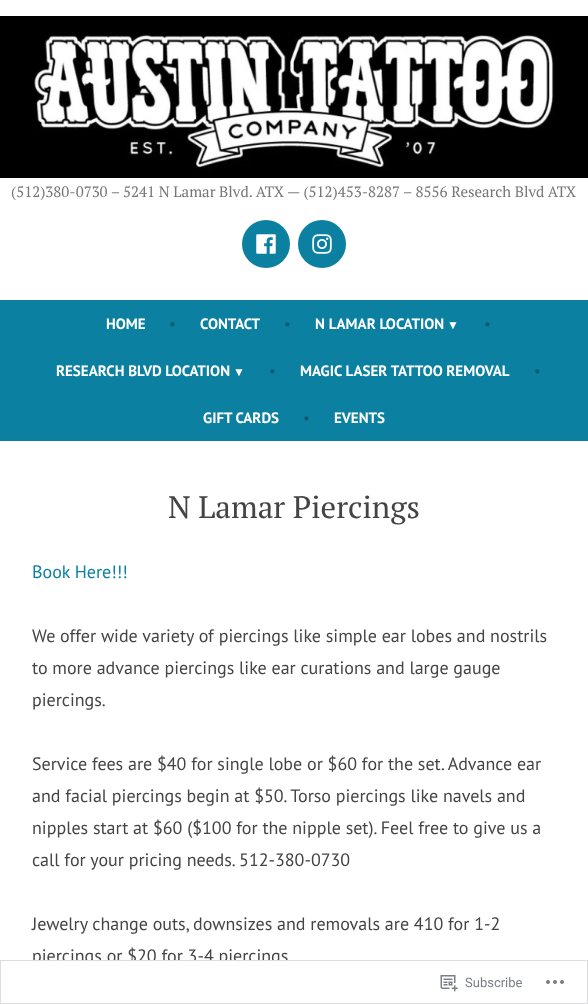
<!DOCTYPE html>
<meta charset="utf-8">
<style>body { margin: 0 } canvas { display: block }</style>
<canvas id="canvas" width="588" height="1004"></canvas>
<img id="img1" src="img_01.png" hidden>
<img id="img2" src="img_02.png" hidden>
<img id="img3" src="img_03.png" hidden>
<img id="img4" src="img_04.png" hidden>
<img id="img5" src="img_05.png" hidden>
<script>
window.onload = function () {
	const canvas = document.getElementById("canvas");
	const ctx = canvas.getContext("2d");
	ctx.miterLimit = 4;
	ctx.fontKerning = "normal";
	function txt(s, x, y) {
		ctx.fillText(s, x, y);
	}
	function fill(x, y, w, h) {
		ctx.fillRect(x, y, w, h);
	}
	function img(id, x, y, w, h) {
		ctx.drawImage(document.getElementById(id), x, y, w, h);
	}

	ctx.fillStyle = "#FFFFFF";
	fill(0, 0, 588, 1004);
	img("img1", 0, 16, 588, 162);
	ctx.fillStyle = "#0C80A1";
	ctx.beginPath();
	ctx.arc(266, 244, 24, 0, Math.PI * 2);
	ctx.fill();
	img("img2", 256, 234, 20, 20);
	ctx.beginPath();
	ctx.arc(322, 244, 24, 0, Math.PI * 2);
	ctx.fill();
	img("img3", 312, 234, 20, 20);
	fill(0, 300, 588, 141);
	ctx.font = "15px PT Serif";
	ctx.fillStyle = "#767676";
	txt("(512)380-0730 – 5241 N Lamar Blvd. ATX — (512)453-8287 – 8556 Research Blvd ATX", 11, 197);
	ctx.font = "bold 15px PT Sans";
	ctx.fillStyle = "#FFFFFF";
	txt("HOME", 106, 329);
	ctx.font = "15px PT Sans";
	ctx.fillStyle = "#085A72";
	txt("•", 169, 329);
	ctx.font = "bold 15px PT Sans";
	ctx.fillStyle = "#FFFFFF";
	txt("CONTACT", 200, 329);
	ctx.font = "15px PT Sans";
	ctx.fillStyle = "#085A72";
	txt("•", 284, 329);
	ctx.font = "bold 15px PT Sans";
	ctx.fillStyle = "#FFFFFF";
	txt("N LAMAR LOCATION", 315, 329);
	ctx.font = "bold 12px Liberation Sans";
	txt("▼", 447, 329);
	ctx.font = "15px PT Sans";
	ctx.fillStyle = "#085A72";
	txt("•", 484, 329);
	ctx.font = "bold 15px PT Sans";
	ctx.fillStyle = "#FFFFFF";
	txt("RESEARCH BLVD LOCATION", 56, 376);
	ctx.font = "bold 12px Liberation Sans";
	txt("▼", 233, 376);
	ctx.font = "15px PT Sans";
	ctx.fillStyle = "#085A72";
	txt("•", 269, 376);
	ctx.font = "bold 15px PT Sans";
	ctx.fillStyle = "#FFFFFF";
	txt("MAGIC LASER TATTOO REMOVAL", 300, 376);
	ctx.font = "15px PT Sans";
	ctx.fillStyle = "#085A72";
	txt("•", 534, 376);
	ctx.font = "bold 15px PT Sans";
	ctx.fillStyle = "#FFFFFF";
	txt("GIFT CARDS", 203, 423);
	ctx.font = "15px PT Sans";
	ctx.fillStyle = "#085A72";
	txt("•", 303, 423);
	ctx.font = "bold 15px PT Sans";
	ctx.fillStyle = "#FFFFFF";
	txt("EVENTS", 334, 423);
	ctx.font = "31px PT Serif";
	ctx.fillStyle = "#444444";
	txt("N Lamar Piercings", 168, 518);
	ctx.font = "18px PT Sans";
	ctx.fillStyle = "#0C80A1";
	txt("Book Here!!!", 32, 578);
	ctx.fillStyle = "#444444";
	txt("We offer wide variety of piercings like simple ear lobes and nostrils", 32, 642);
	txt("to more advance piercings like ear curations and large gauge", 32, 674);
	txt("piercings.", 32, 706);
	txt("Service fees are $40 for single lobe or $60 for the set. Advance ear", 32, 770);
	txt("and facial piercings begin at $50. Torso piercings like navels and", 32, 802);
	txt("nipples start at $60 ($100 for the nipple set). Feel free to give us a", 32, 834);
	txt("call for your pricing needs. 512-380-0730", 32, 866);
	txt("Jewelry change outs, downsizes and removals are 410 for 1-2", 32, 930);
	txt("piercings or $20 for 3-4 piercings", 32, 962);
	ctx.fillStyle = "rgba(255, 255, 255, 0.98)";
	fill(33, 960, 255, 6);
	ctx.strokeStyle = "rgba(220, 220, 222, 0.98)";
	ctx.strokeRect(0.5, 960.5, 587, 43);
	img("img4", 440, 975, 18, 17);
	ctx.font = "13px Roboto";
	ctx.fillStyle = "#7B7F85";
	txt("Subscribe", 465, 987);
	img("img5", 546, 980, 18, 4);
};
</script>
